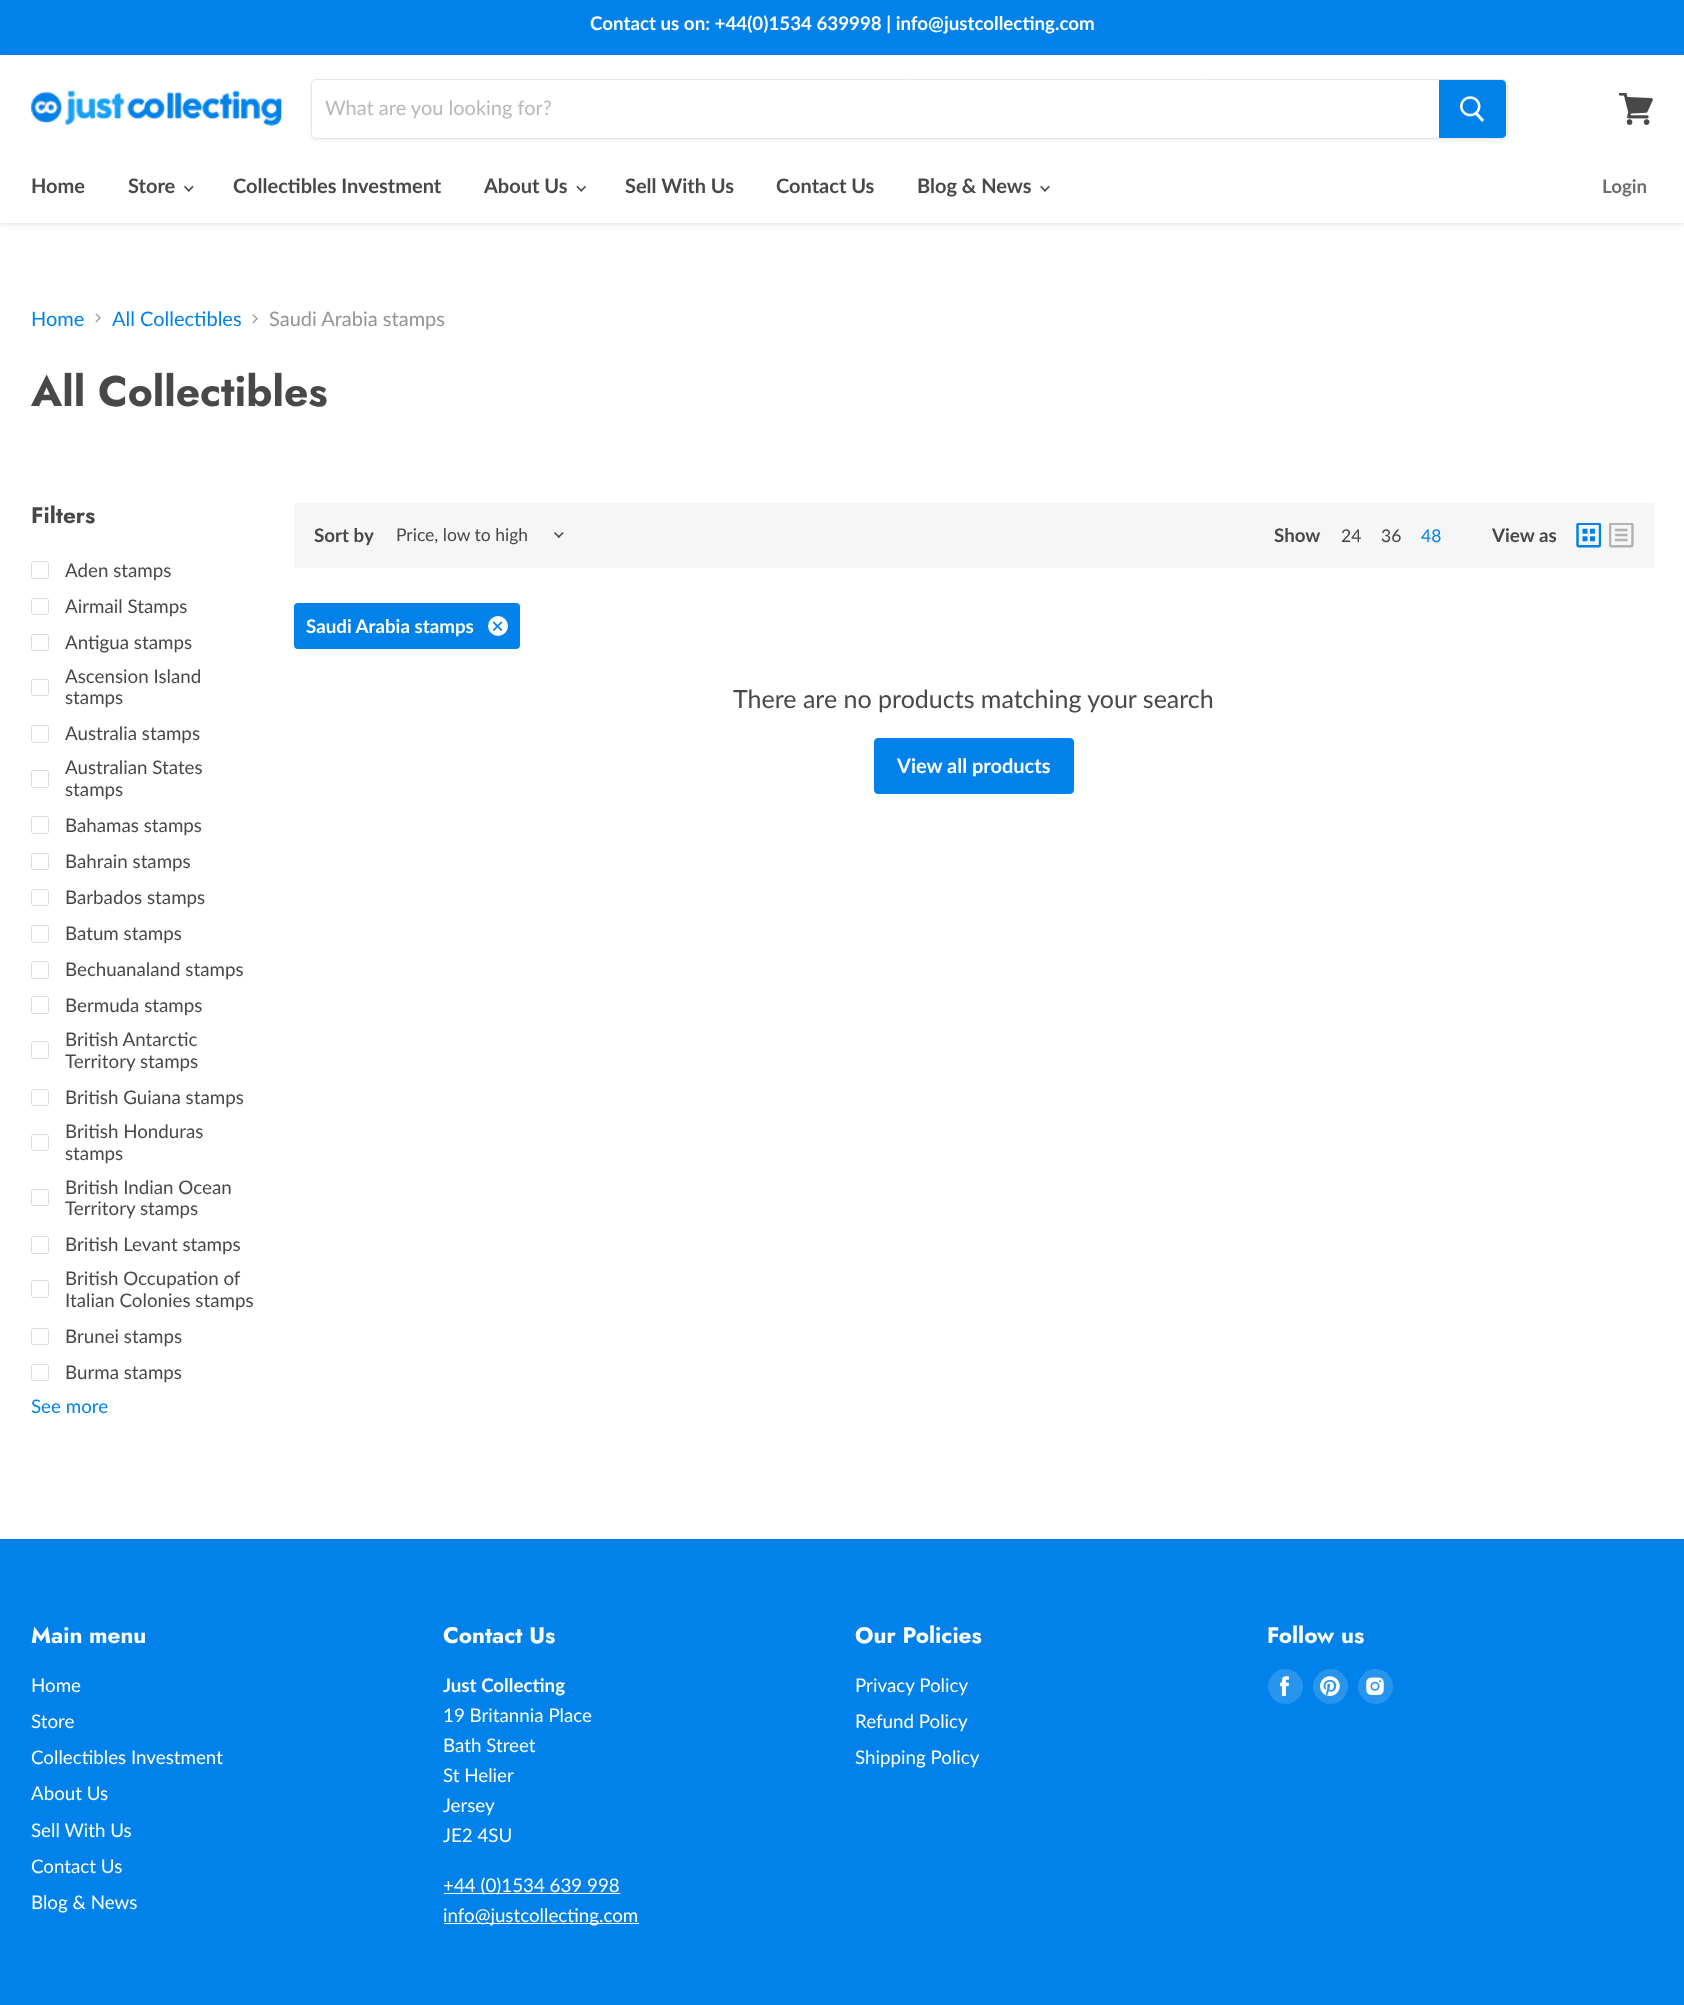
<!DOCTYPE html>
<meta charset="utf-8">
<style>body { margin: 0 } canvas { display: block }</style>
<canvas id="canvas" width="1684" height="2005"></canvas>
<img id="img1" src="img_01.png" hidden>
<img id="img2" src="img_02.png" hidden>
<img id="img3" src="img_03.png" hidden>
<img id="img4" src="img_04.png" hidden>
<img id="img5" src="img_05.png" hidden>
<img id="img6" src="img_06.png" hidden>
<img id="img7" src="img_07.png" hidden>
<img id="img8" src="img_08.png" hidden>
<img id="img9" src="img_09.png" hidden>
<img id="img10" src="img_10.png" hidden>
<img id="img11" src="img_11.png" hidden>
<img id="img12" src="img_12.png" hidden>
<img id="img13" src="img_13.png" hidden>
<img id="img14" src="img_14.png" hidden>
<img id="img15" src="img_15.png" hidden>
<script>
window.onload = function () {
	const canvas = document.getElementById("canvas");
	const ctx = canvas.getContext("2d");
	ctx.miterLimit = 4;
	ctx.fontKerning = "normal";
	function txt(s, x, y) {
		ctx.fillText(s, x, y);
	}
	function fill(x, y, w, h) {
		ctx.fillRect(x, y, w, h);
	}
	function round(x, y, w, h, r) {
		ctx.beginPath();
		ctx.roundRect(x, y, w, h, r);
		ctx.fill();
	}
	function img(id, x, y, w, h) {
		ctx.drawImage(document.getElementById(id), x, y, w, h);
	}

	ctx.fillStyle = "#FFFFFF";
	fill(0, 0, 1684, 2005);
	ctx.fillStyle = "#0182EA";
	fill(0, 0, 1684, 55);
	ctx.fillStyle = "rgba(128, 128, 128, 0.25)";
	ctx.filter = "blur(2.5px)";
	ctx.beginPath();
	ctx.rect(0, 56, 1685, 168);
	ctx.fill();
	ctx.filter = "none";
	ctx.fillStyle = "#FFFFFF";
	fill(0, 55, 1684, 168);
	img("img1", 31, 90, 251, 36);
	ctx.save();
	ctx.beginPath();
	ctx.moveTo(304, 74);
	ctx.lineTo(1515, 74);
	ctx.lineTo(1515, 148);
	ctx.lineTo(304, 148);
	ctx.closePath();
	ctx.moveTo(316, 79);
	ctx.lineTo(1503, 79);
	ctx.bezierCurveTo(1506, 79, 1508, 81, 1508, 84);
	ctx.lineTo(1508, 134);
	ctx.bezierCurveTo(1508, 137, 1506, 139, 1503, 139);
	ctx.lineTo(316, 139);
	ctx.bezierCurveTo(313, 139, 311, 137, 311, 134);
	ctx.lineTo(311, 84);
	ctx.bezierCurveTo(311, 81, 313, 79, 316, 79);
	ctx.closePath();
	ctx.clip("evenodd");
	ctx.fillStyle = "rgba(128, 128, 128, 0.11)";
	ctx.filter = "blur(2px)";
	ctx.beginPath();
	ctx.roundRect(311, 81, 1197, 60, 5);
	ctx.fill();
	ctx.filter = "none";
	ctx.restore();
	ctx.beginPath();
	ctx.roundRect(311.5, 79.5, 1196, 59, 4.5);
	ctx.strokeStyle = "rgba(128, 128, 128, 0.2)";
	ctx.stroke();
	ctx.fillStyle = "#0182EA";
	ctx.beginPath();
	ctx.roundRect(1439.5, 80.5, 66, 57, [0, 3.5, 3.5, 0]);
	ctx.fill();
	ctx.strokeStyle = "#0182EA";
	ctx.stroke();
	img("img2", 1460, 96, 25, 26);
	img("img3", 1619, 93, 34, 32);
	img("img4", 184, 185, 10, 7);
	img("img5", 576, 185, 10, 7);
	img("img6", 1040, 185, 10, 7);
	img("img7", 95, 313, 6, 10);
	img("img8", 252, 314, 6, 10);
	ctx.beginPath();
	ctx.roundRect(31.5, 561.5, 17, 17, 2);
	ctx.strokeStyle = "#DDDDDD";
	ctx.stroke();
	ctx.beginPath();
	ctx.roundRect(31.5, 598.5, 17, 16, 2);
	ctx.stroke();
	ctx.beginPath();
	ctx.roundRect(31.5, 634.5, 17, 16, 2);
	ctx.stroke();
	ctx.beginPath();
	ctx.roundRect(31.5, 679.5, 17, 16, 2);
	ctx.stroke();
	ctx.beginPath();
	ctx.roundRect(31.5, 725.5, 17, 17, 2);
	ctx.stroke();
	ctx.beginPath();
	ctx.roundRect(31.5, 770.5, 17, 17, 2);
	ctx.stroke();
	ctx.beginPath();
	ctx.roundRect(31.5, 816.5, 17, 17, 2);
	ctx.stroke();
	ctx.beginPath();
	ctx.roundRect(31.5, 853.5, 17, 16, 2);
	ctx.stroke();
	ctx.beginPath();
	ctx.roundRect(31.5, 889.5, 17, 16, 2);
	ctx.stroke();
	ctx.beginPath();
	ctx.roundRect(31.5, 925.5, 17, 17, 2);
	ctx.stroke();
	ctx.beginPath();
	ctx.roundRect(31.5, 961.5, 17, 17, 2);
	ctx.stroke();
	ctx.beginPath();
	ctx.roundRect(31.5, 996.5, 17, 17, 2);
	ctx.stroke();
	ctx.beginPath();
	ctx.roundRect(31.5, 1041.5, 17, 17, 2);
	ctx.stroke();
	ctx.beginPath();
	ctx.roundRect(31.5, 1089.5, 17, 16, 2);
	ctx.stroke();
	ctx.beginPath();
	ctx.roundRect(31.5, 1134.5, 17, 16, 2);
	ctx.stroke();
	ctx.beginPath();
	ctx.roundRect(31.5, 1189.5, 17, 16, 2);
	ctx.stroke();
	ctx.beginPath();
	ctx.roundRect(31.5, 1236.5, 17, 17, 2);
	ctx.stroke();
	ctx.beginPath();
	ctx.roundRect(31.5, 1280.5, 17, 17, 2);
	ctx.stroke();
	ctx.beginPath();
	ctx.roundRect(31.5, 1328.5, 17, 16, 2);
	ctx.stroke();
	ctx.beginPath();
	ctx.roundRect(31.5, 1364.5, 17, 16, 2);
	ctx.stroke();
	ctx.fillStyle = "#F6F6F6";
	fill(294, 503, 1360, 65);
	img("img9", 554, 532, 10, 6);
	img("img10", 1576, 523, 25, 25);
	img("img11", 1609, 523, 25, 25);
	ctx.fillStyle = "#0182EA";
	round(294, 603, 226, 46, 4);
	ctx.fillStyle = "#FFFFFF";
	ctx.beginPath();
	ctx.arc(498, 626, 10, 0, Math.PI * 2);
	ctx.fill();
	img("img12", 493, 621, 10, 10);
	ctx.fillStyle = "#0182EA";
	ctx.beginPath();
	ctx.roundRect(874.5, 738.5, 199, 55, 3.5);
	ctx.fill();
	ctx.strokeStyle = "#0182EA";
	ctx.stroke();
	fill(0, 1539, 1684, 466);
	ctx.fillStyle = "#FFFFFF";
	fill(444, 1893, 176, 1);
	fill(444, 1923, 195, 1);
	ctx.fillStyle = "#2795ED";
	ctx.beginPath();
	ctx.arc(1285.5, 1686.5, 17.5, 0, Math.PI * 2);
	ctx.fill();
	img("img13", 1280, 1676, 9, 20);
	ctx.beginPath();
	ctx.arc(1330.5, 1686.5, 17.5, 0, Math.PI * 2);
	ctx.fill();
	img("img14", 1320, 1676, 20, 20);
	ctx.beginPath();
	ctx.arc(1375.5, 1686.5, 17.5, 0, Math.PI * 2);
	ctx.fill();
	img("img15", 1366, 1677, 18, 18);
	ctx.font = "bold 18.75px Lato";
	ctx.fillStyle = "#FFFFFF";
	txt("Contact us on: +44(0)1534 639998 | info@justcollecting.com", 590, 30);
	ctx.font = "20px Lato";
	ctx.fillStyle = "#B8B8B8";
	txt("What are you looking for?", 325, 115);
	ctx.font = "bold 20px Lato";
	ctx.fillStyle = "#484848";
	txt("Home", 31, 193);
	txt("Store", 128, 193);
	txt("Collectibles Investment", 233, 193);
	txt("About Us", 484, 193);
	txt("Sell With Us", 625, 193);
	txt("Contact Us", 776, 193);
	txt("Blog & News", 917, 193);
	ctx.font = "bold 18.75px Lato";
	ctx.fillStyle = "#6D6D6D";
	txt("Login", 1602, 193);
	ctx.font = "20px Lato";
	ctx.fillStyle = "#0182EA";
	txt("Home", 31, 326);
	txt("All Collectibles", 112, 326);
	ctx.fillStyle = "#949494";
	txt("Saudi Arabia stamps", 269, 326);
	ctx.font = "bold 42.5px Jost";
	ctx.fillStyle = "#484848";
	txt("All Collectibles", 31, 406);
	ctx.font = "bold 22.5px Jost";
	txt("Filters", 31, 523);
	ctx.font = "18.75px Lato";
	txt("Aden stamps", 65, 577);
	txt("Airmail Stamps", 65, 613);
	txt("Antigua stamps", 65, 649);
	txt("Ascension Island", 65, 683);
	txt("stamps", 65, 704);
	txt("Australia stamps", 65, 740);
	txt("Australian States", 65, 774);
	txt("stamps", 65, 796);
	txt("Bahamas stamps", 65, 832);
	txt("Bahrain stamps", 65, 868);
	txt("Barbados stamps", 65, 904);
	txt("Batum stamps", 65, 940);
	txt("Bechuanaland stamps", 65, 976);
	txt("Bermuda stamps", 65, 1012);
	txt("British Antarctic", 65, 1046);
	txt("Territory stamps", 65, 1068);
	txt("British Guiana stamps", 65, 1104);
	txt("British Honduras", 65, 1138);
	txt("stamps", 65, 1160);
	txt("British Indian Ocean", 65, 1194);
	txt("Territory stamps", 65, 1215);
	txt("British Levant stamps", 65, 1251);
	txt("British Occupation of", 65, 1285);
	txt("Italian Colonies stamps", 65, 1307);
	txt("Brunei stamps", 65, 1343);
	txt("Burma stamps", 65, 1379);
	ctx.fillStyle = "#0182EA";
	txt("See more", 31, 1413);
	ctx.font = "bold 18.75px Lato";
	ctx.fillStyle = "#484848";
	txt("Sort by", 314, 542);
	ctx.font = "17.5px Lato";
	txt("Price, low to high", 396, 541);
	ctx.font = "bold 18.75px Lato";
	txt("Show", 1274, 542);
	ctx.font = "17.5px Lato";
	txt("24", 1341, 542);
	txt("36", 1381, 542);
	ctx.fillStyle = "#0182EA";
	txt("48", 1421, 542);
	ctx.font = "bold 18.75px Lato";
	ctx.fillStyle = "#484848";
	txt("View as", 1492, 542);
	ctx.fillStyle = "#FFFFFF";
	txt("Saudi Arabia stamps", 306, 633);
	ctx.font = "25px Lato";
	ctx.fillStyle = "#484848";
	txt("There are no products matching your search", 733, 708);
	ctx.font = "bold 20px Lato";
	ctx.fillStyle = "#FFFFFF";
	txt("View all products", 897, 773);
	ctx.font = "bold 22.5px Jost";
	txt("Main menu", 31, 1643);
	ctx.font = "18.75px Lato";
	txt("Home", 31, 1692);
	txt("Store", 31, 1728);
	txt("Collectibles Investment", 31, 1764);
	txt("About Us", 31, 1800);
	txt("Sell With Us", 31, 1837);
	txt("Contact Us", 31, 1873);
	txt("Blog & News", 31, 1909);
	ctx.font = "bold 22.5px Jost";
	txt("Contact Us", 443, 1643);
	ctx.font = "bold 18.75px Lato";
	txt("Just Collecting", 443, 1692);
	ctx.font = "18.75px Lato";
	txt("19 Britannia Place", 443, 1722);
	txt("Bath Street", 443, 1752);
	txt("St Helier", 443, 1782);
	txt("Jersey", 443, 1812);
	txt("JE2 4SU", 443, 1842);
	txt("+44 (0)1534 639 998", 443, 1892);
	txt("info@justcollecting.com", 443, 1922);
	ctx.font = "bold 22.5px Jost";
	txt("Our Policies", 855, 1643);
	ctx.font = "18.75px Lato";
	txt("Privacy Policy", 855, 1692);
	txt("Refund Policy", 855, 1728);
	txt("Shipping Policy", 855, 1764);
	ctx.font = "bold 22.5px Jost";
	txt("Follow us", 1267, 1643);
};
</script>
